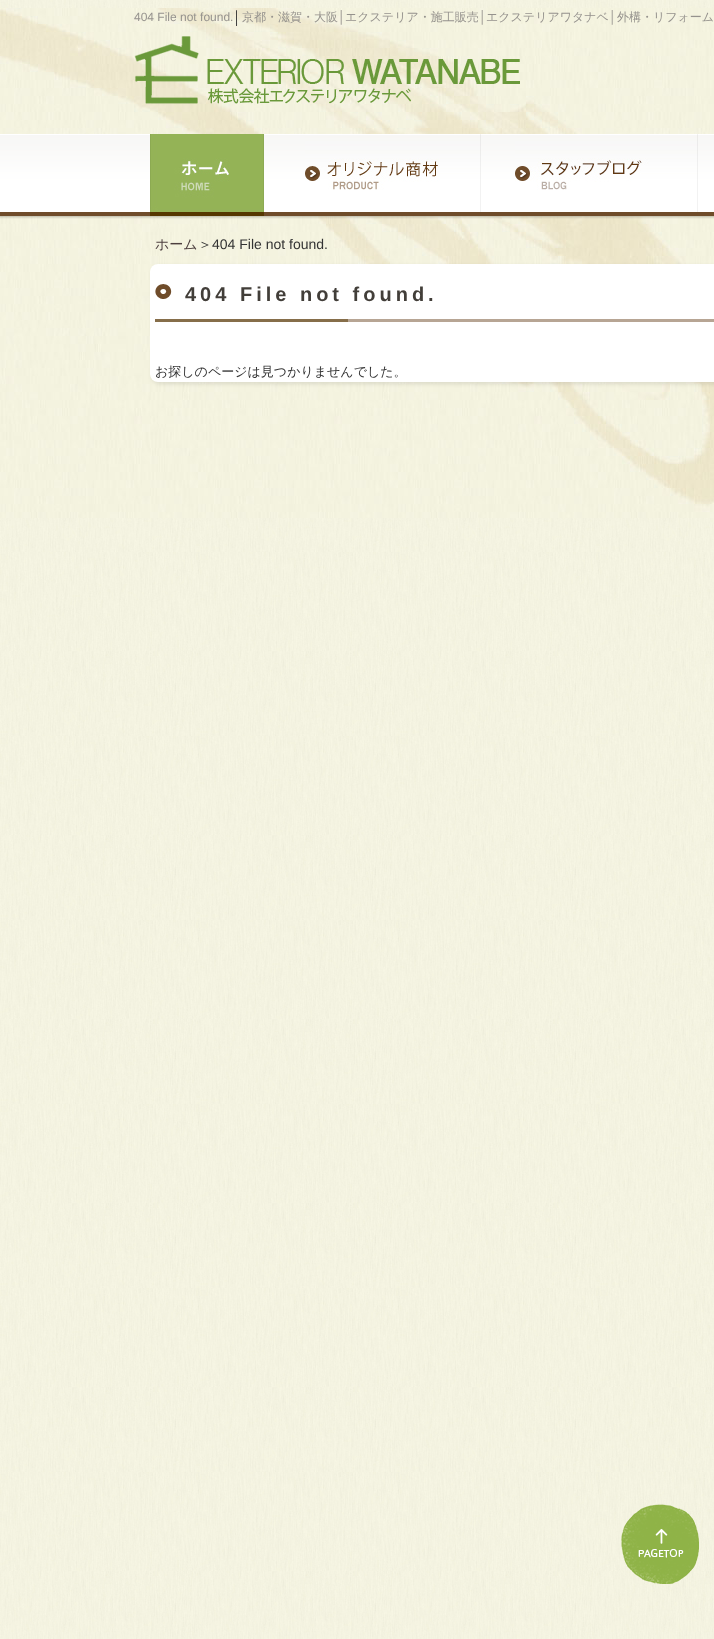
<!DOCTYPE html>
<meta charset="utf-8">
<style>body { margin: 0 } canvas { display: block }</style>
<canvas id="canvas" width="714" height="1639"></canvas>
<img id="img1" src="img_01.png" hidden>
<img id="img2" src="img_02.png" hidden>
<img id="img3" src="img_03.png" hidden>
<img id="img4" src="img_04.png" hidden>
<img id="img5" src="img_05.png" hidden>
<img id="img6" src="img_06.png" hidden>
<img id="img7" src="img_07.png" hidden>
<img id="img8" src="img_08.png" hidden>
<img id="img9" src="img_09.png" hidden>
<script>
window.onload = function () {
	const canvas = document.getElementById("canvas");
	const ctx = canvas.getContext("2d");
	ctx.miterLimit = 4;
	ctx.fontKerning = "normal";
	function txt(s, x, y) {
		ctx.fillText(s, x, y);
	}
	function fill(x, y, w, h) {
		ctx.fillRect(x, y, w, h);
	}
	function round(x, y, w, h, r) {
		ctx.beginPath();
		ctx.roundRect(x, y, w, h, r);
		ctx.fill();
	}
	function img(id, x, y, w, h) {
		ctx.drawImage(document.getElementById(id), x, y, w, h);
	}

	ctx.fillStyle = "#FFFFFF";
	fill(0, 0, 714, 1639);
	img("img1", 0, 0, 714, 1639);
	img("img2", 0, 8, 714, 510);
	img("img3", 134, 36, 386, 68);
	img("img4", 0, 134, 714, 85);
	img("img5", 150, 134, 114, 82);
	img("img6", 305, 134, 176, 78);
	img("img7", 515, 134, 183, 78);
	ctx.fillStyle = "rgba(0, 0, 0, 0.1)";
	ctx.filter = "blur(2px)";
	ctx.beginPath();
	ctx.roundRect(152, 266, 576, 118, 8);
	ctx.fill();
	ctx.filter = "none";
	ctx.fillStyle = "#FFFFFF";
	round(150, 264, 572, 118, 8);
	img("img8", 155, 284, 559, 38);
	img("img9", 621, 1504, 78, 80);
	ctx.font = "12px Liberation Sans";
	ctx.fillStyle = "#95928D";
	txt("404 File not found.", 134, 21);
	ctx.font = "13px Liberation Sans";
	ctx.fillStyle = "#333333";
	txt("│", 233, 22);
	ctx.font = "500 12px WenQuanYi Zen Hei";
	ctx.fillStyle = "#95928D";
	txt("京都・滋賀・大阪", 242, 21);
	ctx.font = "12px Liberation Sans";
	txt("│", 338, 21);
	ctx.font = "500 12px WenQuanYi Zen Hei";
	txt("エクステリア・施工販売", 345, 21);
	ctx.font = "12px Liberation Sans";
	txt("│", 479, 21);
	ctx.font = "500 12px WenQuanYi Zen Hei";
	txt("エクステリアワタナベ", 486, 21);
	ctx.font = "12px Liberation Sans";
	txt("│", 609, 21);
	ctx.font = "500 12px WenQuanYi Zen Hei";
	txt("外構・リフォーム", 617, 21);
	ctx.font = "500 14px WenQuanYi Zen Hei";
	ctx.fillStyle = "#4D3F3F";
	txt("ホーム", 155, 249);
	ctx.fillStyle = "#333333";
	txt("＞", 198, 249);
	ctx.font = "14px Liberation Sans";
	txt("404 File not found.", 212, 249);
	ctx.letterSpacing = "4px";
	ctx.font = "bold 20px Liberation Sans";
	ctx.fillStyle = "#423E39";
	txt("404 File not found.", 185, 301);
	ctx.letterSpacing = "0px";
	ctx.font = "500 13px WenQuanYi Zen Hei";
	ctx.fillStyle = "#333333";
	txt("お探しのページは見つかりませんでした。", 155, 376);
};
</script>
